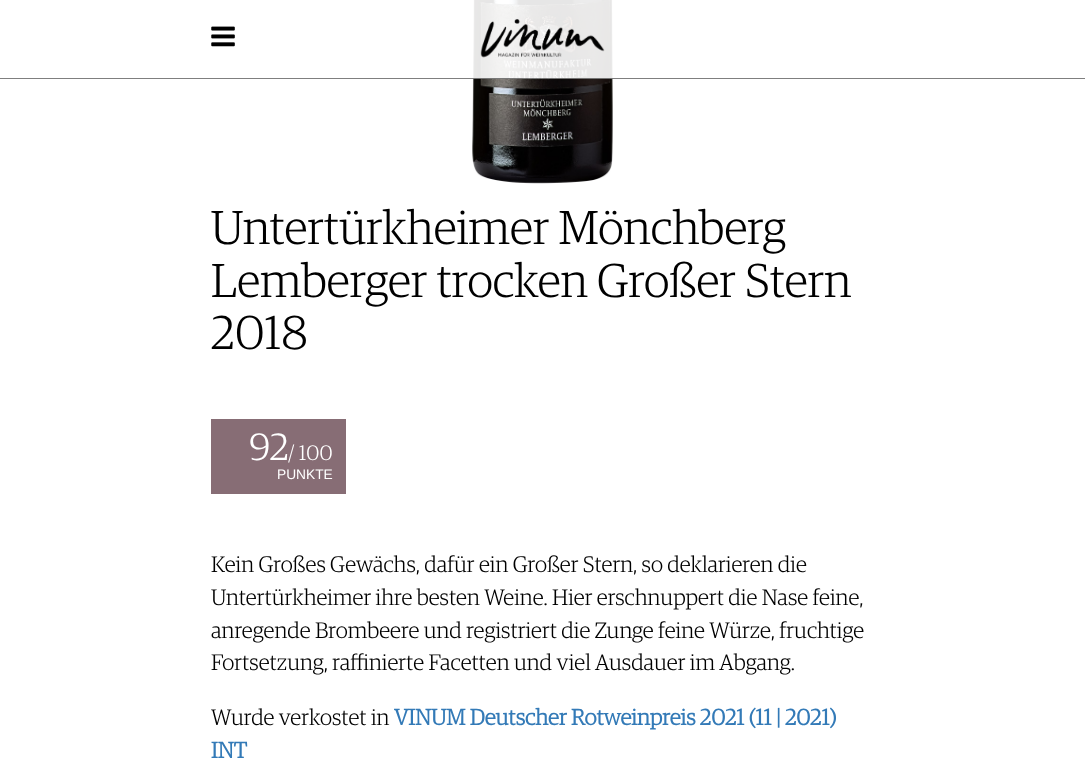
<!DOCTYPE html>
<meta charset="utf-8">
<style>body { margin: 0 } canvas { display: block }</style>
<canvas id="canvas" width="1085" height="764"></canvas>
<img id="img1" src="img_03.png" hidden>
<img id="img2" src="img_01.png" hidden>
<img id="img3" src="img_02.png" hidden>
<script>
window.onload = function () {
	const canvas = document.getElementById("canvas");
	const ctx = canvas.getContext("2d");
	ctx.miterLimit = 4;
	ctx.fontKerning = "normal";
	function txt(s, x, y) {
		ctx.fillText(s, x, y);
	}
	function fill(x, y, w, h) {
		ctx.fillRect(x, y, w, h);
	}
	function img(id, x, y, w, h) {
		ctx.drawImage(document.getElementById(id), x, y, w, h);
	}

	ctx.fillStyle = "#FFFFFF";
	fill(0, 0, 1085, 764);
	img("img1", 472, 0, 141, 184);
	ctx.fillStyle = "rgba(255, 255, 255, 0.9)";
	fill(472, 0, 141, 79);
	ctx.fillStyle = "rgba(0, 0, 0, 0.5)";
	fill(0, 78, 1085, 1);
	img("img2", 211, 26, 24, 21);
	img("img3", 480, 19, 125, 39);
	ctx.fillStyle = "#876D75";
	fill(211, 419, 135, 75);
	ctx.font = "300 47.5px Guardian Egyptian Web";
	ctx.fillStyle = "#000000";
	txt("Untertürkheimer Mönchberg", 211, 244);
	txt("Lemberger trocken Großer Stern", 211, 297);
	txt("2018", 211, 349);
	ctx.font = "300 38px Guardian Egyptian Web";
	ctx.fillStyle = "#FFFFFF";
	txt("92", 249, 460);
	ctx.font = "300 21px Guardian Egyptian Web";
	txt("/ 100", 288, 460);
	ctx.font = "13.75px Liberation Sans";
	txt("PUNKTE", 277, 479);
	ctx.font = "300 22.5px Guardian Egyptian Web";
	ctx.fillStyle = "#000000";
	txt("Kein Großes Gewächs, dafür ein Großer Stern, so deklarieren die", 211, 572);
	txt("Untertürkheimer ihre besten Weine. Hier erschnuppert die Nase feine,", 211, 605);
	txt("anregende Brombeere und registriert die Zunge feine Würze, fruchtige", 211, 638);
	txt("Fortsetzung, raffinierte Facetten und viel Ausdauer im Abgang.", 211, 670);
	txt("Wurde verkostet in", 211, 725);
	ctx.font = "bold 22.5px Guardian Egyptian Web";
	ctx.fillStyle = "#337AB7";
	txt("VINUM Deutscher Rotweinpreis 2021 (11 | 2021)", 394, 725);
	txt("INT", 211, 758);
};
</script>
